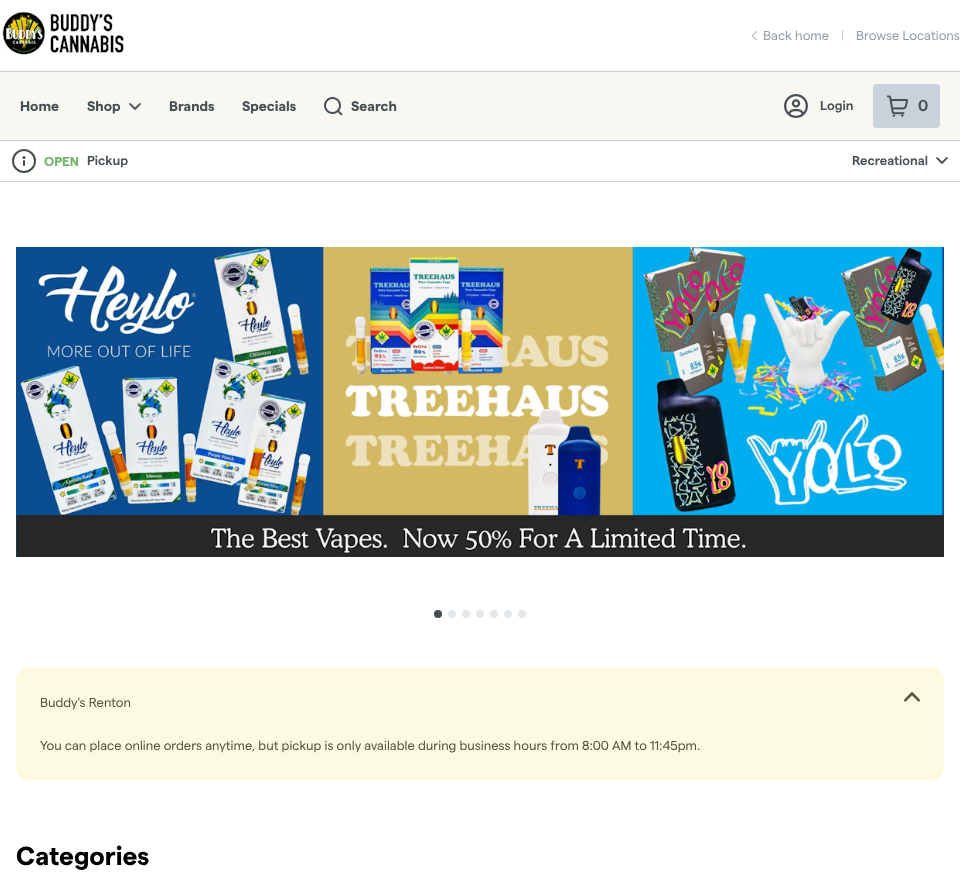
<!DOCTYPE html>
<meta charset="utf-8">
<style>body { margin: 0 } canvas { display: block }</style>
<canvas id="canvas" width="960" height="873"></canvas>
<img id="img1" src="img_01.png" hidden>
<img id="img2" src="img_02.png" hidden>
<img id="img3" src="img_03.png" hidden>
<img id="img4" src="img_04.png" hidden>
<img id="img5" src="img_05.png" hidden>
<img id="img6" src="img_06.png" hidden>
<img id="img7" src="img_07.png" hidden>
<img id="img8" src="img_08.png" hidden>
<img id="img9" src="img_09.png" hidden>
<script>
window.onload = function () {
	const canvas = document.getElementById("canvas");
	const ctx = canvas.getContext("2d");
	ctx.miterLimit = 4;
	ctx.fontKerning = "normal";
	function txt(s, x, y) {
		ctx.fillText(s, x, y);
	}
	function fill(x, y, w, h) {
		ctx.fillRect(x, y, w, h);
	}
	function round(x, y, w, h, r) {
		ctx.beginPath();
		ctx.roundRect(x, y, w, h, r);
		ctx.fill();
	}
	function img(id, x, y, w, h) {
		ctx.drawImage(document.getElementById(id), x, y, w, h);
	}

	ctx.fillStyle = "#FFFFFF";
	fill(0, 0, 960, 873);
	ctx.fillStyle = "#C5D0D7";
	fill(0, 71, 960, 1);
	img("img1", 2, 11, 123, 44);
	img("img2", 752, 31, 5, 9);
	ctx.fillStyle = "#F8F7F2";
	fill(0, 72, 960, 68);
	ctx.fillStyle = "#C8D2DB";
	fill(0, 140, 960, 1);
	img("img3", 129, 103, 12, 7);
	img("img4", 324, 97, 19, 19);
	img("img5", 784, 94, 24, 24);
	round(873, 84, 67, 44, 4);
	img("img6", 886, 95, 23, 22);
	fill(0, 181, 960, 1);
	ctx.beginPath();
	ctx.arc(24, 161, 11, 0, Math.PI * 2);
	ctx.strokeStyle = "#485055";
	ctx.lineWidth = 2;
	ctx.stroke();
	ctx.beginPath();
	ctx.moveTo(24, 161);
	ctx.lineTo(24, 165);
	ctx.lineCap = "round";
	ctx.stroke();
	ctx.fillStyle = "#485055";
	ctx.beginPath();
	ctx.arc(24, 157.5, 1.5, 0, Math.PI * 2);
	ctx.fill();
	img("img7", 936, 157, 12, 7);
	img("img8", 16, 247, 928, 310);
	ctx.fillStyle = "#454E50";
	ctx.beginPath();
	ctx.arc(438, 614, 4, 0, Math.PI * 2);
	ctx.fill();
	ctx.fillStyle = "#E5E8EA";
	ctx.beginPath();
	ctx.arc(452, 614, 4, 0, Math.PI * 2);
	ctx.fill();
	ctx.beginPath();
	ctx.arc(466, 614, 4, 0, Math.PI * 2);
	ctx.fill();
	ctx.beginPath();
	ctx.arc(480, 614, 4, 0, Math.PI * 2);
	ctx.fill();
	ctx.beginPath();
	ctx.arc(494, 614, 4, 0, Math.PI * 2);
	ctx.fill();
	ctx.beginPath();
	ctx.arc(508, 614, 4, 0, Math.PI * 2);
	ctx.fill();
	ctx.beginPath();
	ctx.arc(522, 614, 4, 0, Math.PI * 2);
	ctx.fill();
	ctx.fillStyle = "#FCFAE0";
	round(16, 668, 928, 112, 12);
	img("img9", 904, 692, 16, 10);
	ctx.font = "13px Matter";
	ctx.fillStyle = "#969EA5";
	txt("Back home", 763, 40);
	ctx.fillStyle = "#CBCFD2";
	txt("|", 841, 40);
	ctx.fillStyle = "#969EA5";
	txt("Browse Locations", 856, 40);
	ctx.font = "bold 14px Matter";
	ctx.fillStyle = "#485055";
	txt("Home", 20, 111);
	txt("Shop", 87, 111);
	txt("Brands", 169, 111);
	txt("Specials", 242, 111);
	txt("Search", 351, 111);
	ctx.font = "600 13px Matter";
	txt("Login", 820, 110);
	ctx.font = "600 16px Matter";
	txt("0", 918, 111);
	ctx.font = "bold 13px Matter";
	ctx.fillStyle = "#74B56E";
	txt("OPEN", 44, 166);
	ctx.font = "600 13px Matter";
	ctx.fillStyle = "#485055";
	txt("Pickup", 87, 165);
	txt("Recreational", 852, 165);
	ctx.font = "13px Matter";
	ctx.fillStyle = "#57563B";
	txt("Buddy's Renton", 40, 707);
	txt("You can place online orders anytime, but pickup is only available during business hours from 8:00 AM to 11:45pm.", 40, 750);
	ctx.font = "bold 26px Matter";
	ctx.fillStyle = "#000000";
	txt("Categories", 16, 865);
};
</script>
